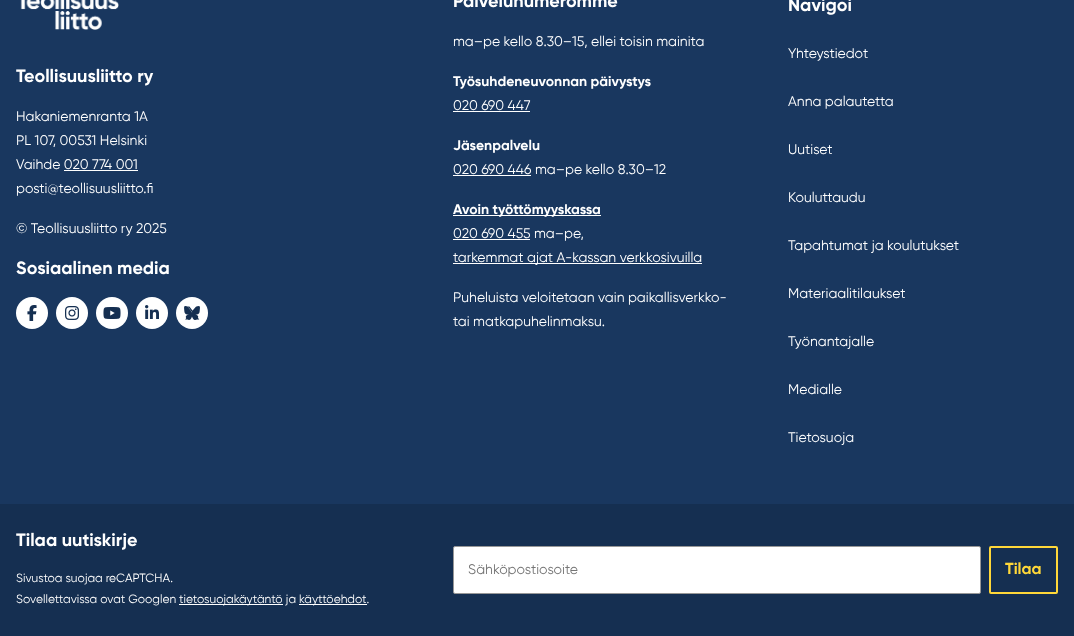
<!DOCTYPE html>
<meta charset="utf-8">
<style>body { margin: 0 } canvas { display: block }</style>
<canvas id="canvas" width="1074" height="636"></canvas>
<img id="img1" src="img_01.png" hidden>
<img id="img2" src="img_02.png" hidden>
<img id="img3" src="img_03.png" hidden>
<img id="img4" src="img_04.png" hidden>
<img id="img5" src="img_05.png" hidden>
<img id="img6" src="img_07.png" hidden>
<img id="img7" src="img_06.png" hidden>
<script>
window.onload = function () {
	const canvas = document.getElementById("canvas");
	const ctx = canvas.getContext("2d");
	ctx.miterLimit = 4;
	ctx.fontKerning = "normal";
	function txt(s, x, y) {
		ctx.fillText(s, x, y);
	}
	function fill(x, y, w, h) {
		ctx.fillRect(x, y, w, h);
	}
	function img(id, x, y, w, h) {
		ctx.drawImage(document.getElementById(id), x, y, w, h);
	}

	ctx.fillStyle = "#19375F";
	fill(0, 0, 1074, 636);
	img("img1", 20, 0, 99, 30);
	ctx.fillStyle = "#FFFFFF";
	fill(64, 170, 74, 1);
	ctx.beginPath();
	ctx.arc(32, 313, 16, 0, Math.PI * 2);
	ctx.fill();
	img("img2", 27, 305, 10, 16);
	ctx.beginPath();
	ctx.arc(72, 313, 16, 0, Math.PI * 2);
	ctx.fill();
	img("img3", 65, 306, 14, 14);
	ctx.beginPath();
	ctx.arc(112, 313, 16, 0, Math.PI * 2);
	ctx.fill();
	img("img4", 103, 307, 18, 12);
	ctx.beginPath();
	ctx.arc(152, 313, 16, 0, Math.PI * 2);
	ctx.fill();
	img("img5", 145, 305, 14, 14);
	ctx.beginPath();
	ctx.arc(192, 313, 16, 0, Math.PI * 2);
	ctx.fill();
	img("img6", 185, 306, 15, 14);
	img("img7", 184, 306, 16, 14);
	fill(453, 111, 77, 1);
	fill(453, 175, 78, 1);
	fill(453, 215, 148, 1);
	fill(453, 239, 77, 1);
	fill(453, 263, 249, 1);
	ctx.fillStyle = "#152F51";
	fill(0, 504, 1074, 132);
	ctx.fillStyle = "#FFFFFF";
	fill(179, 604, 104, 1);
	fill(299, 604, 68, 1);
	ctx.beginPath();
	ctx.roundRect(453.5, 546.5, 527, 47, 1.5);
	ctx.fill();
	ctx.strokeStyle = "#979797";
	ctx.stroke();
	ctx.beginPath();
	ctx.roundRect(990, 547, 67, 46, 1);
	ctx.strokeStyle = "#FFD839";
	ctx.lineWidth = 2;
	ctx.stroke();
	ctx.font = "18px Gilroy";
	txt("Teollisuusliitto ry", 16, 82);
	ctx.font = "14px 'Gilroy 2'";
	txt("Hakaniemenranta 1A", 16, 121);
	txt("PL 107, 00531 Helsinki", 16, 145);
	txt("Vaihde 020 774 001", 16, 169);
	txt("posti@teollisuusliitto.fi", 16, 193);
	txt("© Teollisuusliitto ry 2025", 16, 233);
	ctx.font = "18px Gilroy";
	txt("Sosiaalinen media", 16, 274);
	txt("Palvelunumeromme", 453, 7);
	ctx.font = "14px 'Gilroy 2'";
	txt("ma–pe kello 8.30–15, ellei toisin mainita", 453, 46);
	ctx.font = "14px Gilroy";
	txt("Työsuhdeneuvonnan päivystys", 453, 86);
	ctx.font = "14px 'Gilroy 2'";
	txt("020 690 447", 453, 110);
	ctx.font = "14px Gilroy";
	txt("Jäsenpalvelu", 453, 150);
	ctx.font = "14px 'Gilroy 2'";
	txt("020 690 446 ma–pe kello 8.30–12", 453, 174);
	ctx.font = "14px Gilroy";
	txt("Avoin työttömyyskassa", 453, 214);
	ctx.font = "14px 'Gilroy 2'";
	txt("020 690 455 ma–pe,", 453, 238);
	txt("tarkemmat ajat A-kassan verkkosivuilla", 453, 262);
	txt("Puheluista veloitetaan vain paikallisverkko-", 453, 302);
	txt("tai matkapuhelinmaksu.", 453, 326);
	ctx.font = "18px Gilroy";
	txt("Navigoi", 788, 11);
	ctx.font = "14px 'Gilroy 2'";
	txt("Yhteystiedot", 788, 58);
	txt("Anna palautetta", 788, 106);
	txt("Uutiset", 788, 154);
	txt("Kouluttaudu", 788, 202);
	txt("Tapahtumat ja koulutukset", 788, 250);
	txt("Materiaalitilaukset", 788, 298);
	txt("Työnantajalle", 788, 346);
	txt("Medialle", 788, 394);
	txt("Tietosuoja", 788, 442);
	ctx.font = "18px Gilroy";
	txt("Tilaa uutiskirje", 16, 546);
	ctx.font = "12px 'Gilroy 2'";
	txt("Sivustoa suojaa reCAPTCHA.", 16, 582);
	txt("Sovellettavissa ovat Googlen", 16, 603);
	txt("tietosuojakäytäntö ja", 179, 603);
	txt("käyttöehdot.", 299, 603);
	ctx.font = "14px 'Gilroy 2'";
	ctx.fillStyle = "#757575";
	txt("Sähköpostiosoite", 468, 574);
	ctx.font = "16px Gilroy";
	ctx.fillStyle = "#FFD839";
	txt("Tilaa", 1005, 574);
};
</script>
